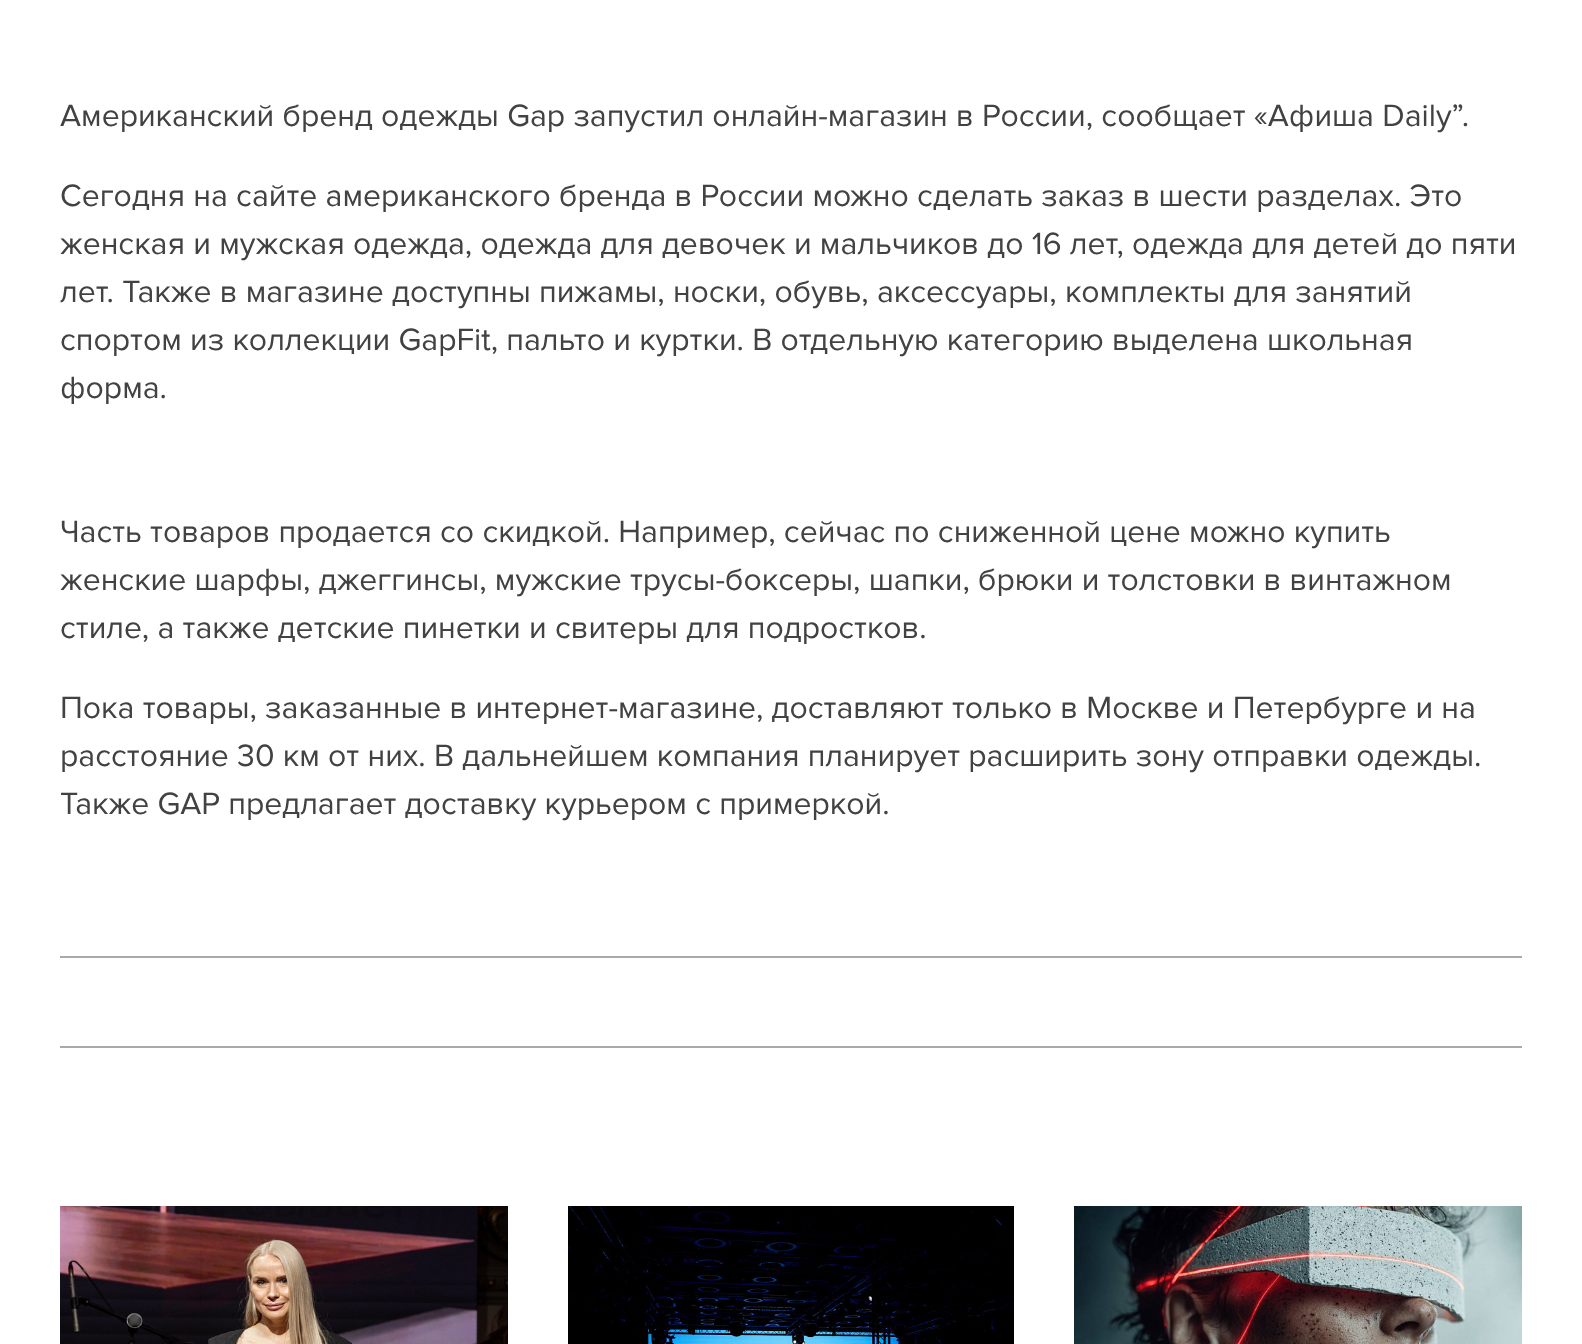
<!DOCTYPE html>
<meta charset="utf-8">
<style>body { margin: 0 } canvas { display: block }</style>
<canvas id="canvas" width="1582" height="1344"></canvas>
<img id="img1" src="img_01.png" hidden>
<img id="img2" src="img_02.png" hidden>
<img id="img3" src="img_03.png" hidden>
<script>
window.onload = function () {
	const canvas = document.getElementById("canvas");
	const ctx = canvas.getContext("2d");
	ctx.miterLimit = 4;
	ctx.fontKerning = "normal";
	function txt(s, x, y) {
		ctx.fillText(s, x, y);
	}
	function fill(x, y, w, h) {
		ctx.fillRect(x, y, w, h);
	}
	function img(id, x, y, w, h) {
		ctx.drawImage(document.getElementById(id), x, y, w, h);
	}

	ctx.fillStyle = "#FFFFFF";
	fill(0, 0, 1582, 1344);
	ctx.fillStyle = "#A9A9A9";
	fill(60, 956, 1462, 2);
	fill(60, 1046, 1462, 2);
	img("img1", 60, 1206, 448, 138);
	img("img2", 568, 1206, 446, 138);
	img("img3", 1074, 1206, 448, 138);
	ctx.font = "32px Proxima Nova";
	ctx.fillStyle = "#424242";
	txt("Американский бренд одежды Gap запустил онлайн-магазин в России, сообщает «Афиша Daily”.", 60, 126);
	txt("Сегодня на сайте американского бренда в России можно сделать заказ в шести разделах. Это", 60, 206);
	txt("женская и мужская одежда, одежда для девочек и мальчиков до 16 лет, одежда для детей до пяти", 60, 254);
	txt("лет. Также в магазине доступны пижамы, носки, обувь, аксессуары, комплекты для занятий", 60, 302);
	txt("спортом из коллекции GapFit, пальто и куртки. В отдельную категорию выделена школьная", 60, 350);
	txt("форма.", 60, 398);
	txt("Часть товаров продается со скидкой. Например, сейчас по сниженной цене можно купить", 60, 542);
	txt("женские шарфы, джеггинсы, мужские трусы-боксеры, шапки, брюки и толстовки в винтажном", 60, 590);
	txt("стиле, а также детские пинетки и свитеры для подростков.", 60, 638);
	txt("Пока товары, заказанные в интернет-магазине, доставляют только в Москве и Петербурге и на", 60, 718);
	txt("расстояние 30 км от них. В дальнейшем компания планирует расширить зону отправки одежды.", 60, 766);
	txt("Также GAP предлагает доставку курьером с примеркой.", 60, 814);
};
</script>
